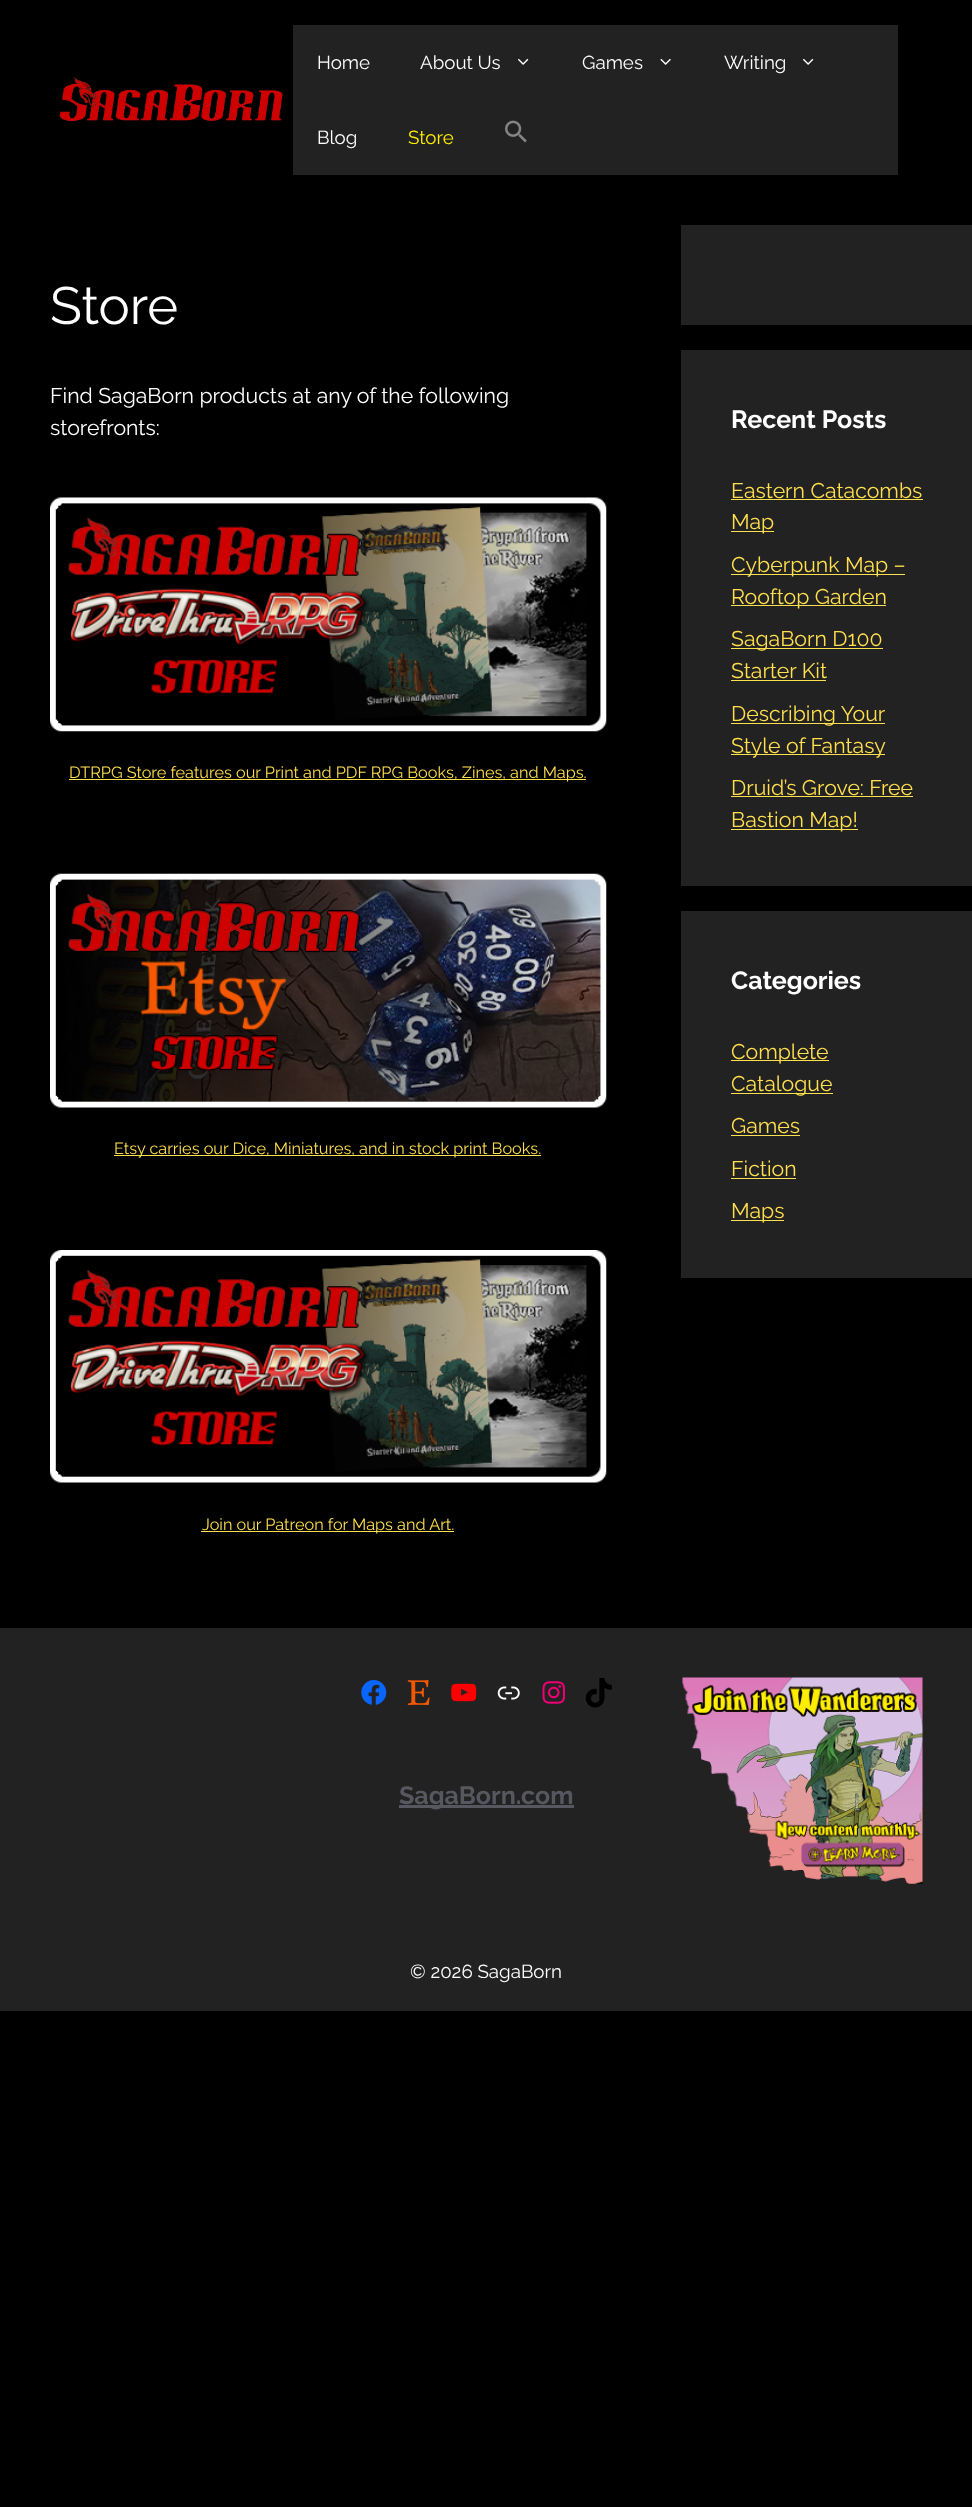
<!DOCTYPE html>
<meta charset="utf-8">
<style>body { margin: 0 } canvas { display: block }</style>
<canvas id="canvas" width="972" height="2507"></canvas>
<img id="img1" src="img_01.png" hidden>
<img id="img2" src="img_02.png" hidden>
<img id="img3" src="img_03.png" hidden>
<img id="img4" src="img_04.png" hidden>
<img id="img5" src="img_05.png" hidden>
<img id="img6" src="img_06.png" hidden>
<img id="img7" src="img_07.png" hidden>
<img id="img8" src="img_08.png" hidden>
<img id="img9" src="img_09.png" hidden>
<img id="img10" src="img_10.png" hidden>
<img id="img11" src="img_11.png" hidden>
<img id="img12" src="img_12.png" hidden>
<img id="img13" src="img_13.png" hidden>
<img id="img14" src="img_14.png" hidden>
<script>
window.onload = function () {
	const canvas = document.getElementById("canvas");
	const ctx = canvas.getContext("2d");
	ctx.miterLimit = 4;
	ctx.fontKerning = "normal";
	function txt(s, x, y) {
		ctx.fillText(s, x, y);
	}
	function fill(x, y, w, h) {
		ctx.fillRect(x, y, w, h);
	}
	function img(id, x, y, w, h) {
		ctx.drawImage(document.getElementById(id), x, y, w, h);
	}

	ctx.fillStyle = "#000000";
	fill(0, 0, 972, 2507);
	img("img1", 59, 77, 224, 45);
	ctx.fillStyle = "#222222";
	fill(293, 25, 605, 150);
	img("img2", 518, 58, 11, 7);
	img("img3", 660, 58, 11, 7);
	img("img2", 803, 58, 11, 7);
	img("img4", 505, 120, 22, 23);
	img("img5", 50, 497, 557, 235);
	ctx.fillStyle = "#FFDF4D";
	fill(69, 779, 517, 1);
	img("img6", 50, 873, 557, 235);
	fill(114, 1155, 427, 1);
	img("img7", 50, 1250, 557, 233);
	fill(201, 1531, 253, 1);
	ctx.fillStyle = "#222222";
	fill(681, 225, 291, 100);
	fill(681, 350, 291, 536);
	ctx.fillStyle = "#FFDF4D";
	fill(731, 499, 192, 1);
	fill(731, 531, 43, 1);
	fill(731, 574, 174, 1);
	fill(731, 605, 155, 1);
	fill(731, 648, 152, 1);
	fill(731, 680, 95, 1);
	fill(731, 723, 154, 1);
	fill(731, 754, 154, 1);
	fill(731, 796, 182, 1);
	fill(731, 829, 127, 1);
	ctx.fillStyle = "#222222";
	fill(681, 911, 291, 367);
	ctx.fillStyle = "#FFDF4D";
	fill(731, 1060, 98, 1);
	fill(731, 1093, 102, 1);
	fill(731, 1135, 69, 1);
	fill(731, 1178, 65, 1);
	fill(731, 1220, 53, 1);
	ctx.fillStyle = "#222222";
	fill(0, 1628, 972, 383);
	img("img8", 361, 1680, 26, 25);
	img("img9", 407, 1680, 23, 25);
	img("img10", 451, 1683, 26, 19);
	img("img11", 497, 1686, 23, 14);
	img("img12", 542, 1681, 23, 23);
	img("img13", 585, 1678, 27, 30);
	ctx.fillStyle = "#575760";
	fill(399, 1805, 175, 3);
	img("img14", 682, 1677, 241, 207);
	ctx.font = "18.75px Raleway";
	ctx.fillStyle = "#FFFFFF";
	txt("Home", 317, 69);
	txt("About Us", 420, 69);
	txt("Games", 582, 69);
	txt("Writing", 724, 69);
	txt("Blog", 317, 144);
	ctx.fillStyle = "#FFEE00";
	txt("Store", 408, 144);
	ctx.font = "52.5px Raleway";
	ctx.fillStyle = "#FFFFFF";
	txt("Store", 50, 324);
	ctx.font = "21.25px Raleway";
	txt("Find SagaBorn products at any of the following", 50, 403);
	txt("storefronts:", 50, 435);
	ctx.font = "16.25px Raleway";
	ctx.fillStyle = "#FFDF4D";
	txt("DTRPG Store features our Print and PDF RPG Books, Zines, and Maps.", 69, 778);
	txt("Etsy carries our Dice, Miniatures, and in stock print Books.", 114, 1154);
	txt("Join our Patreon for Maps and Art.", 202, 1530);
	ctx.font = "bold 25px Raleway";
	ctx.fillStyle = "#FFFFFF";
	txt("Recent Posts", 731, 428);
	ctx.font = "21.25px Raleway";
	ctx.fillStyle = "#FFDF4D";
	txt("Eastern Catacombs", 731, 498);
	txt("Map", 731, 529);
	txt("Cyberpunk Map –", 731, 572);
	txt("Rooftop Garden", 731, 604);
	txt("SagaBorn D100", 731, 646);
	txt("Starter Kit", 731, 678);
	txt("Describing Your", 731, 721);
	txt("Style of Fantasy", 731, 753);
	txt("Druid’s Grove: Free", 731, 795);
	txt("Bastion Map!", 731, 827);
	ctx.font = "bold 25px Raleway";
	ctx.fillStyle = "#FFFFFF";
	txt("Categories", 731, 989);
	ctx.font = "21.25px Raleway";
	ctx.fillStyle = "#FFDF4D";
	txt("Complete", 731, 1059);
	txt("Catalogue", 731, 1091);
	txt("Games", 731, 1133);
	txt("Fiction", 731, 1176);
	txt("Maps", 731, 1218);
	ctx.font = "bold 25px Raleway";
	ctx.fillStyle = "#575760";
	txt("SagaBorn.com", 399, 1804);
	ctx.font = "18.75px Raleway";
	ctx.fillStyle = "#FFFFFF";
	txt("© 2026 SagaBorn", 410, 1978);
};
</script>
